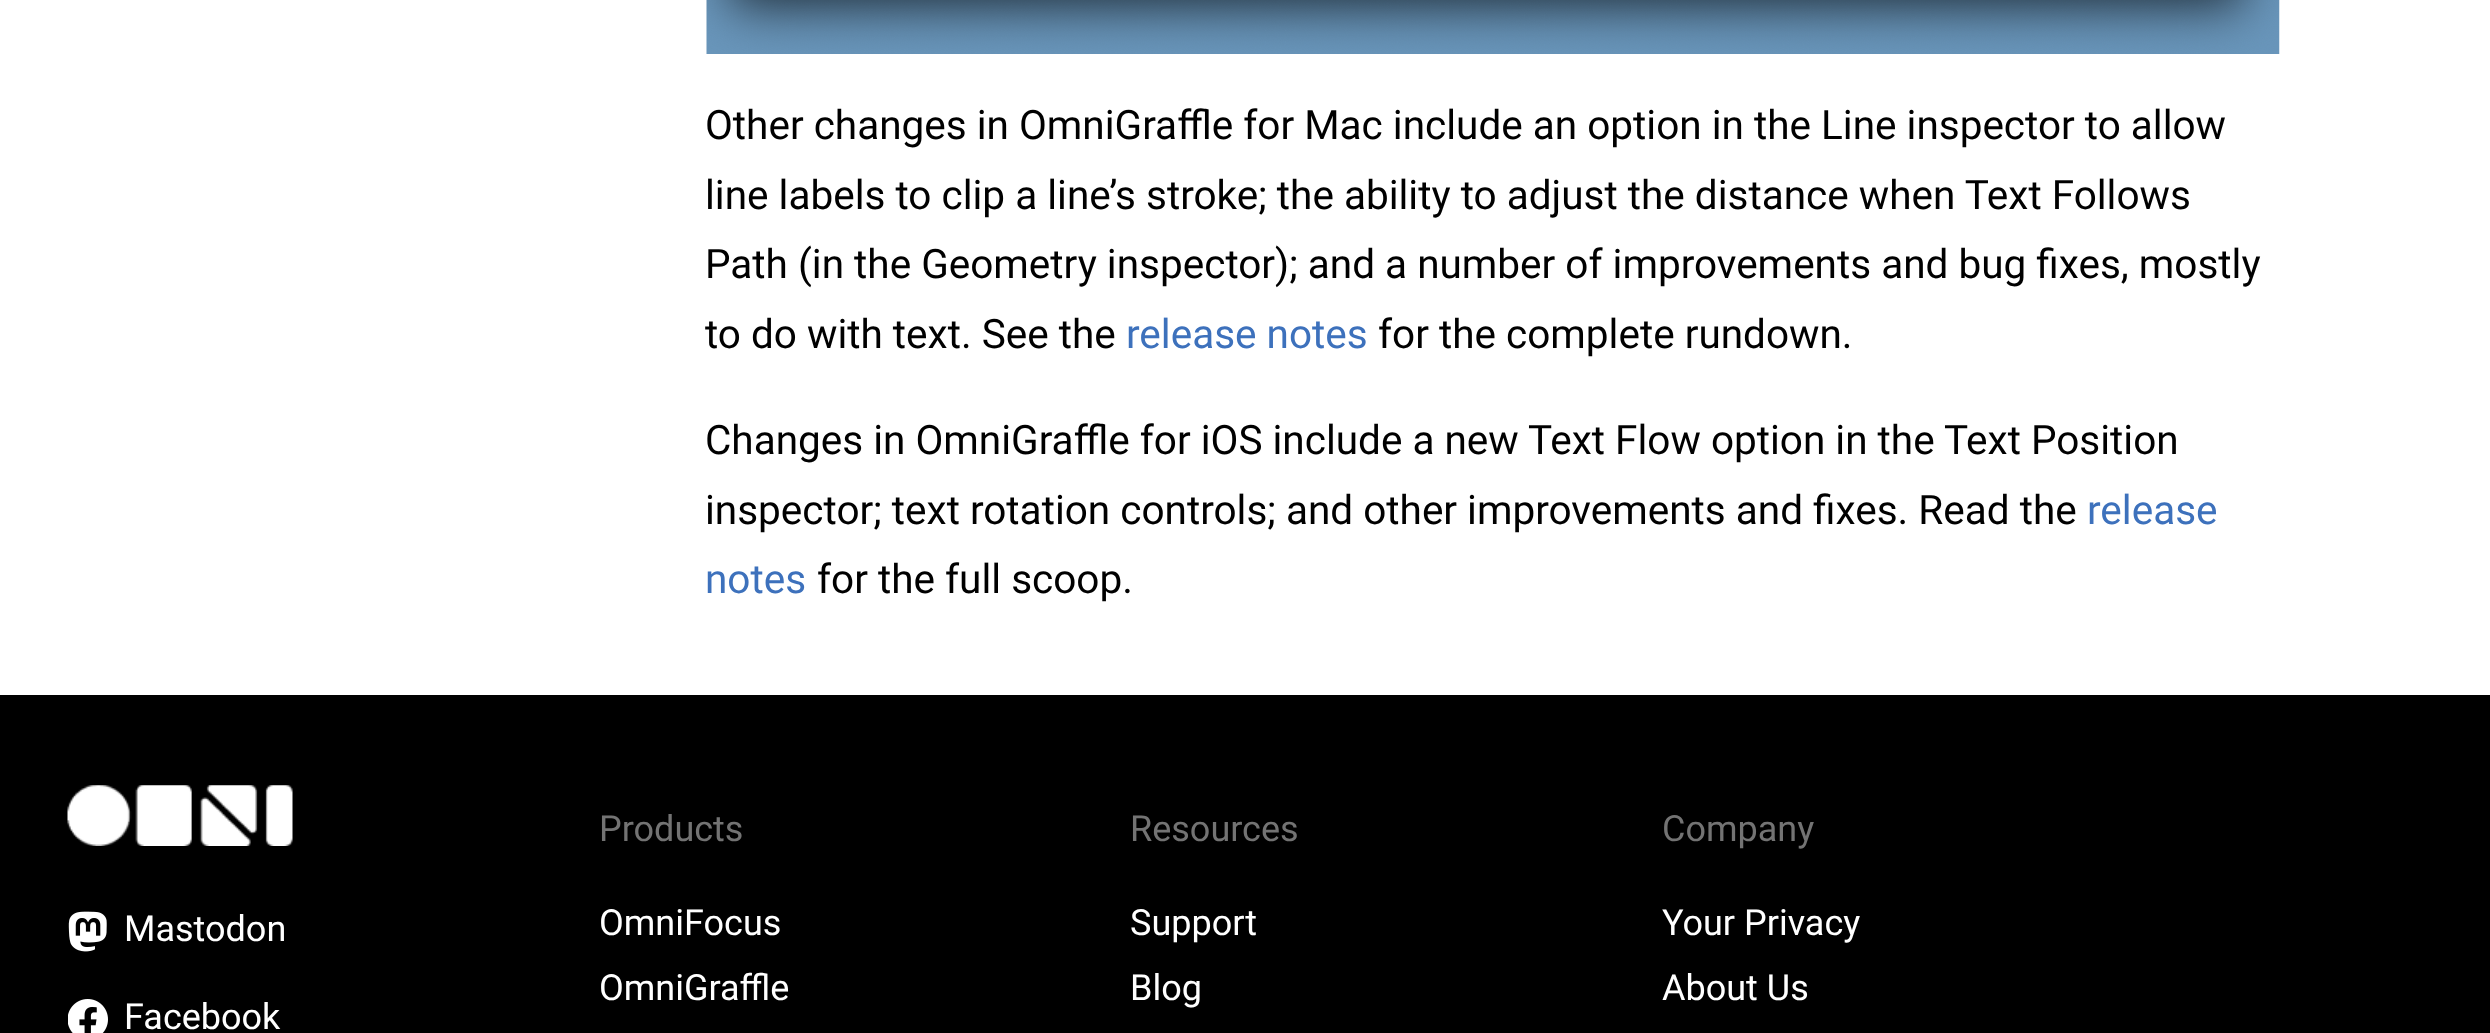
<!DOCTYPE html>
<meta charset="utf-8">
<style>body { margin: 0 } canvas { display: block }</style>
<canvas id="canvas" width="2490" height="1033"></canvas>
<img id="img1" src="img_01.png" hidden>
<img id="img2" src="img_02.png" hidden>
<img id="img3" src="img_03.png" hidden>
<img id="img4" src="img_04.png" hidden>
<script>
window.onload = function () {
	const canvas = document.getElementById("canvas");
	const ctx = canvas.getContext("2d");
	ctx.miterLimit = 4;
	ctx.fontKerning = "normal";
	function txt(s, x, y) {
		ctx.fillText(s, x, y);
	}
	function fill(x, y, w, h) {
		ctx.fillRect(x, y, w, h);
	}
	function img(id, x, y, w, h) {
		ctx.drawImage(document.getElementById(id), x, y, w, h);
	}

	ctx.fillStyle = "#FFFFFF";
	fill(0, 0, 2490, 1033);
	img("img1", 706, 0, 1574, 54);
	ctx.fillStyle = "#000000";
	fill(0, 695, 2490, 338);
	img("img2", 67, 785, 226, 61);
	img("img3", 68, 911, 39, 41);
	img("img4", 68, 999, 40, 34);
	ctx.font = "40.5px Roboto";
	txt("Other changes in OmniGraffle for Mac include an option in the Line inspector to allow", 705, 139);
	txt("line labels to clip a line’s stroke; the ability to adjust the distance when Text Follows", 705, 209);
	txt("Path (in the Geometry inspector); and a number of improvements and bug fixes, mostly", 705, 278);
	txt("to do with text. See the", 705, 348);
	ctx.fillStyle = "#3D71BC";
	txt("release notes", 1126, 348);
	ctx.fillStyle = "#000000";
	txt("for the complete rundown.", 1378, 348);
	txt("Changes in OmniGraffle for iOS include a new Text Flow option in the Text Position", 705, 454);
	txt("inspector; text rotation controls; and other improvements and fixes. Read the", 705, 524);
	ctx.fillStyle = "#3D71BC";
	txt("release", 2087, 524);
	txt("notes", 705, 593);
	ctx.fillStyle = "#000000";
	txt("for the full scoop.", 817, 593);
	ctx.font = "36px Roboto";
	ctx.fillStyle = "#FFFFFF";
	txt("Mastodon", 124, 941);
	txt("Facebook", 124, 1029);
	ctx.fillStyle = "#737373";
	txt("Products", 599, 841);
	ctx.fillStyle = "#FFFFFF";
	txt("OmniFocus", 599, 935);
	txt("OmniGraffle", 599, 1000);
	ctx.fillStyle = "#737373";
	txt("Resources", 1130, 841);
	ctx.fillStyle = "#FFFFFF";
	txt("Support", 1130, 935);
	txt("Blog", 1130, 1000);
	ctx.fillStyle = "#737373";
	txt("Company", 1662, 841);
	ctx.fillStyle = "#FFFFFF";
	txt("Your Privacy", 1662, 935);
	txt("About Us", 1662, 1000);
};
</script>
